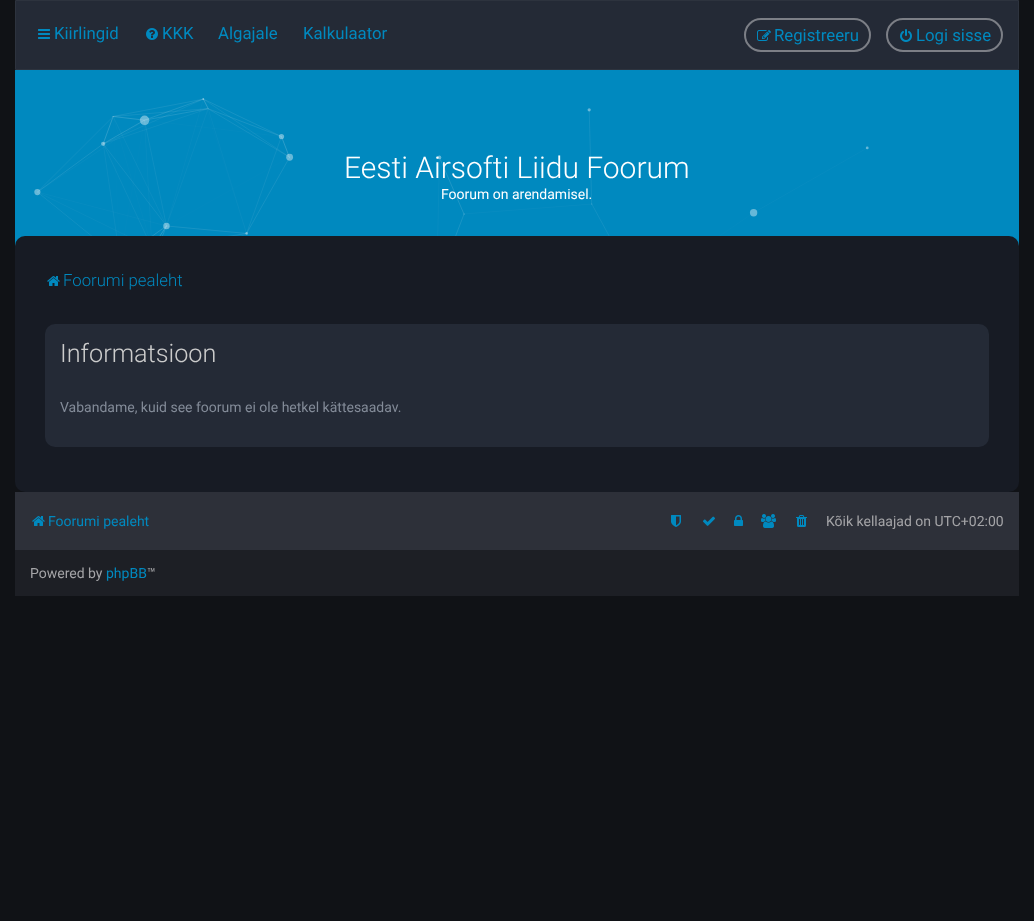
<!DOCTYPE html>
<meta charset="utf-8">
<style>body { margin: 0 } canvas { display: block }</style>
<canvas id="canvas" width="1034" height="921"></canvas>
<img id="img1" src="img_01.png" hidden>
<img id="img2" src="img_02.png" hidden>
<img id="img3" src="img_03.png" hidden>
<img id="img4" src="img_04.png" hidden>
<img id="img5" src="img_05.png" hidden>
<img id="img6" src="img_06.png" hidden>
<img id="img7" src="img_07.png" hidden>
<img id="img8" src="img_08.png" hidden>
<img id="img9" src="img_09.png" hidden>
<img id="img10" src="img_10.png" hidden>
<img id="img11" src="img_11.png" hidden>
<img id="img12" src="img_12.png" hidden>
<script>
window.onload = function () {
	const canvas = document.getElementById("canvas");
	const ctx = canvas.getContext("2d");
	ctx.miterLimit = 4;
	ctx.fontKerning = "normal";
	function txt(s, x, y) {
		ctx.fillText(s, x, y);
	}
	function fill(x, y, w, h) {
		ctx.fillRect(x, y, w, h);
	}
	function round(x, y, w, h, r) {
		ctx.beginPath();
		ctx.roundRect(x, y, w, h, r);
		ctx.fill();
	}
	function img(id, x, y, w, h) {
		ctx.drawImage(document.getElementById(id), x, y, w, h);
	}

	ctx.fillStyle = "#101216";
	fill(0, 0, 1034, 921);
	ctx.fillStyle = "#242A36";
	ctx.beginPath();
	ctx.rect(15.5, 0.5, 1003, 69);
	ctx.fill();
	ctx.strokeStyle = "#2D333E";
	ctx.stroke();
	img("img1", 38, 29, 12, 10);
	img("img2", 146, 28, 12, 12);
	ctx.beginPath();
	ctx.roundRect(745, 19, 125, 32, 16);
	ctx.strokeStyle = "#7C7F86";
	ctx.lineWidth = 2;
	ctx.stroke();
	img("img3", 757, 30, 14, 11);
	ctx.beginPath();
	ctx.roundRect(887, 19, 115, 32, 16);
	ctx.stroke();
	img("img4", 900, 29, 12, 13);
	ctx.fillStyle = "#0089BF";
	fill(15, 70, 1004, 176);
	img("img5", 34, 98, 835, 138);
	ctx.fillStyle = "#171B24";
	round(15, 236, 1004, 256, 10);
	img("img6", 47, 276, 13, 10);
	ctx.fillStyle = "#242A36";
	round(45, 324, 944, 123, 10);
	ctx.fillStyle = "#2D3039";
	fill(15, 492, 1004, 58);
	img("img7", 32, 516, 13, 10);
	img("img8", 671, 515, 10, 12);
	img("img9", 703, 516, 12, 10);
	img("img10", 734, 515, 9, 11);
	img("img11", 761, 514, 15, 14);
	img("img12", 796, 515, 11, 12);
	ctx.fillStyle = "#1D1F25";
	fill(15, 550, 1004, 46);
	ctx.font = "16.75px Roboto";
	ctx.fillStyle = "#0089BF";
	txt("Kiirlingid", 54, 39);
	txt("KKK", 162, 39);
	txt("Algajale", 218, 39);
	txt("Kalkulaator", 303, 39);
	txt("Registreeru", 774, 41);
	txt("Logi sisse", 916, 41);
	ctx.font = "300 30px Roboto";
	ctx.fillStyle = "#FFFFFF";
	txt("Eesti Airsofti Liidu Foorum", 344, 178);
	ctx.font = "14px Roboto";
	txt("Foorum on arendamisel.", 441, 199);
	ctx.font = "300 16.75px Roboto";
	ctx.fillStyle = "#0089BF";
	txt("Foorumi pealeht", 63, 286);
	ctx.font = "300 25.25px Roboto";
	ctx.fillStyle = "#CCCCCC";
	txt("Informatsioon", 60, 362);
	ctx.font = "14px Roboto";
	ctx.fillStyle = "#838B98";
	txt("Vabandame, kuid see foorum ei ole hetkel kättesaadav.", 60, 412);
	ctx.fillStyle = "#0089BF";
	txt("Foorumi pealeht", 48, 526);
	ctx.fillStyle = "#A4A4A7";
	txt("Kõik kellaajad on UTC+02:00", 826, 526);
	txt("Powered by", 30, 578);
	ctx.fillStyle = "#0089BF";
	txt("phpBB", 106, 578);
	ctx.fillStyle = "#A4A4A7";
	txt("™", 147, 578);
};
</script>
